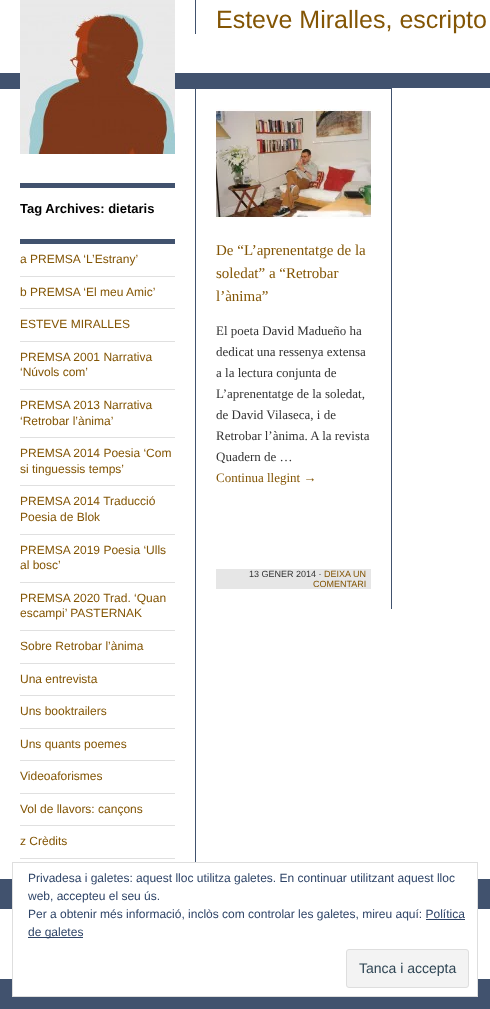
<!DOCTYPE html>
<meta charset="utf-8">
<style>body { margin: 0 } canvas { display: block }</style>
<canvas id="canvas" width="490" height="1009"></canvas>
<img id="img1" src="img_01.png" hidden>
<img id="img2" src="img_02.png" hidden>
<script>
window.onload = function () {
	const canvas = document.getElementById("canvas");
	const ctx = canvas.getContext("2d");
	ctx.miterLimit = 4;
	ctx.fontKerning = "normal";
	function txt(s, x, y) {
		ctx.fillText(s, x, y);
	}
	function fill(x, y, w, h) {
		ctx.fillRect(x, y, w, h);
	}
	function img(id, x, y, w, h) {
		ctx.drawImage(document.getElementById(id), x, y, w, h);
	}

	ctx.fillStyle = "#41526E";
	fill(0, 0, 490, 1009);
	ctx.fillStyle = "#FFFFFF";
	fill(0, 0, 490, 73);
	fill(0, 88, 490, 791);
	ctx.fillStyle = "#41526E";
	fill(0, 88, 392, 1);
	img("img1", 20, 0, 155, 154);
	fill(195, 0, 1, 34);
	fill(195, 88, 1, 774);
	fill(20, 183, 155, 5);
	fill(20, 239, 155, 5);
	ctx.fillStyle = "#E0E0E0";
	fill(20, 276, 155, 1);
	fill(20, 308, 155, 1);
	fill(20, 341, 155, 1);
	fill(20, 389, 155, 1);
	fill(20, 437, 155, 1);
	fill(20, 485, 155, 1);
	fill(20, 534, 155, 1);
	fill(20, 582, 155, 1);
	fill(20, 630, 155, 1);
	fill(20, 663, 155, 1);
	fill(20, 695, 155, 1);
	fill(20, 728, 155, 1);
	fill(20, 760, 155, 1);
	fill(20, 793, 155, 1);
	fill(20, 825, 155, 1);
	fill(20, 858, 155, 1);
	ctx.fillStyle = "#41526E";
	fill(391, 88, 1, 521);
	img("img2", 216, 109, 155, 110);
	ctx.fillStyle = "#E6E6E6";
	fill(216, 569, 155, 20);
	ctx.fillStyle = "#FFFFFF";
	fill(0, 909, 490, 70);
	fill(13, 879, 464, 117);
	ctx.strokeStyle = "#DEDEDE";
	ctx.strokeRect(12.5, 862.5, 465, 134);
	ctx.fillStyle = "#2E4467";
	fill(426, 919, 39, 1);
	fill(28, 937, 55, 1);
	ctx.fillStyle = "#F3F3F3";
	ctx.beginPath();
	ctx.roundRect(346.5, 949.5, 122, 38, 2.5);
	ctx.fill();
	ctx.stroke();
	ctx.font = "25px Liberation Sans";
	ctx.fillStyle = "#835504";
	txt("Esteve Miralles, escripto", 216, 28);
	ctx.font = "bold 13px Liberation Sans";
	ctx.fillStyle = "#000000";
	txt("Tag Archives: dietaris", 20, 213);
	ctx.font = "12px Liberation Sans";
	ctx.fillStyle = "#835504";
	txt("a PREMSA ‘L’Estrany’", 20, 263);
	txt("b PREMSA ‘El meu Amic’", 20, 296);
	txt("ESTEVE MIRALLES", 20, 328);
	txt("PREMSA 2001 Narrativa", 20, 361);
	txt("‘Núvols com’", 20, 376);
	txt("PREMSA 2013 Narrativa", 20, 409);
	txt("‘Retrobar l’ànima’", 20, 425);
	txt("PREMSA 2014 Poesia ‘Com", 20, 457);
	txt("si tinguessis temps’", 20, 473);
	txt("PREMSA 2014 Traducció", 20, 505);
	txt("Poesia de Blok", 20, 521);
	txt("PREMSA 2019 Poesia ‘Ulls", 20, 554);
	txt("al bosc’", 20, 569);
	txt("PREMSA 2020 Trad. ‘Quan", 20, 602);
	txt("escampi’ PASTERNAK", 20, 617);
	txt("Sobre Retrobar l’ànima", 20, 650);
	txt("Una entrevista", 20, 683);
	txt("Uns booktrailers", 20, 715);
	txt("Uns quants poemes", 20, 748);
	txt("Videoaforismes", 20, 780);
	txt("Vol de llavors: cançons", 20, 813);
	txt("z Crèdits", 20, 845);
	ctx.font = "15px Liberation Serif";
	txt("De “L’aprenentatge de la", 216, 255);
	txt("soledat” a “Retrobar", 216, 278);
	txt("l’ànima”", 216, 301);
	ctx.font = "13px Liberation Serif";
	ctx.fillStyle = "#333333";
	txt("El poeta David Madueño ha", 216, 335);
	txt("dedicat una ressenya extensa", 216, 356);
	txt("a la lectura conjunta de", 216, 377);
	txt("L’aprenentatge de la soledat,", 216, 398);
	txt("de David Vilaseca, i de", 216, 419);
	txt("Retrobar l’ànima. A la revista", 216, 440);
	txt("Quadern de …", 216, 461);
	ctx.fillStyle = "#835504";
	txt("Continua llegint →", 216, 482);
	ctx.font = "9px Liberation Sans";
	ctx.fillStyle = "#333333";
	txt("13 GENER 2014 ·", 249, 577);
	ctx.fillStyle = "#835504";
	txt("DEIXA UN", 324, 577);
	txt("COMENTARI", 313, 587);
	ctx.font = "12px Liberation Sans";
	ctx.fillStyle = "#2E4467";
	txt("Privadesa i galetes: aquest lloc utilitza galetes. En continuar utilitzant aquest lloc", 28, 882);
	txt("web, accepteu el seu ús.", 28, 900);
	txt("Per a obtenir més informació, inclòs com controlar les galetes, mireu aquí: Política", 28, 918);
	txt("de galetes", 28, 936);
	ctx.font = "14px Liberation Sans";
	ctx.fillStyle = "#2E4453";
	txt("Tanca i accepta", 359, 973);
};
</script>
